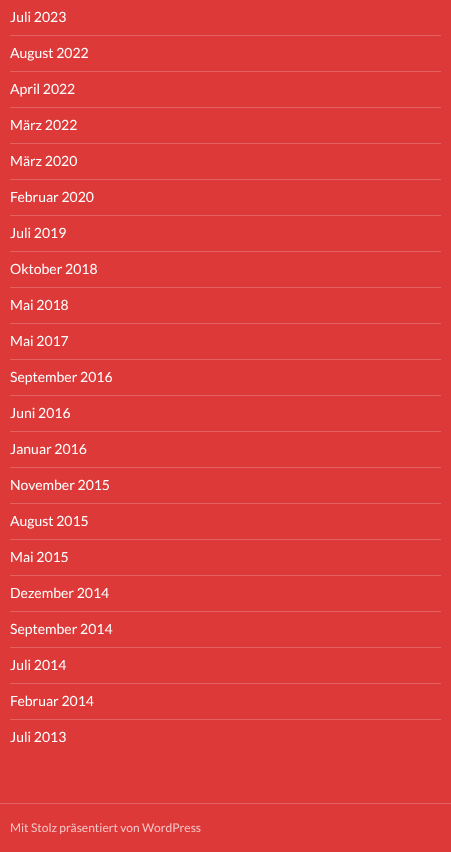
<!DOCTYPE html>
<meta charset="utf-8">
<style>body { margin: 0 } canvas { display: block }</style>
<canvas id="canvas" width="451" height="852"></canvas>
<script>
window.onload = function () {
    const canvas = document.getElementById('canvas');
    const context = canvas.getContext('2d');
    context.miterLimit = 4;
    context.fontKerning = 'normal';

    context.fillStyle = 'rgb(221, 57, 57)';
    context.fillRect(0, 0, 451, 852);
    context.fillStyle = 'rgb(228, 97, 97)';
    context.fillRect(0, 803, 451, 1);
    context.fillRect(10, 35, 431, 1);
    context.fillRect(10, 71, 431, 1);
    context.fillRect(10, 107, 431, 1);
    context.fillRect(10, 143, 431, 1);
    context.fillRect(10, 179, 431, 1);
    context.fillRect(10, 215, 431, 1);
    context.fillRect(10, 251, 431, 1);
    context.fillRect(10, 287, 431, 1);
    context.fillRect(10, 323, 431, 1);
    context.fillRect(10, 359, 431, 1);
    context.fillRect(10, 395, 431, 1);
    context.fillRect(10, 431, 431, 1);
    context.fillRect(10, 467, 431, 1);
    context.fillRect(10, 503, 431, 1);
    context.fillRect(10, 539, 431, 1);
    context.fillRect(10, 575, 431, 1);
    context.fillRect(10, 611, 431, 1);
    context.fillRect(10, 647, 431, 1);
    context.fillRect(10, 683, 431, 1);
    context.fillRect(10, 719, 431, 1);
    context.font = '14px Lato';
    context.fillStyle = 'rgb(255, 255, 255)';
    context.fillText('Juli 2023', 10, 22);
    context.fillText('August 2022', 10, 58);
    context.fillText('April 2022', 10, 94);
    context.fillText('März 2022', 10, 130);
    context.fillText('März 2020', 10, 166);
    context.fillText('Februar 2020', 10, 202);
    context.fillText('Juli 2019', 10, 238);
    context.fillText('Oktober 2018', 10, 274);
    context.fillText('Mai 2018', 10, 310);
    context.fillText('Mai 2017', 10, 346);
    context.fillText('September 2016', 10, 382);
    context.fillText('Juni 2016', 10, 418);
    context.fillText('Januar 2016', 10, 454);
    context.fillText('November 2015', 10, 490);
    context.fillText('August 2015', 10, 526);
    context.fillText('Mai 2015', 10, 562);
    context.fillText('Dezember 2014', 10, 598);
    context.fillText('September 2014', 10, 634);
    context.fillText('Juli 2014', 10, 670);
    context.fillText('Februar 2014', 10, 706);
    context.fillText('Juli 2013', 10, 742);
    context.font = '12px Lato';
    context.fillStyle = 'rgb(245, 196, 196)';
    context.fillText('Mit Stolz präsentiert von WordPress', 10, 832);
};
</script>
